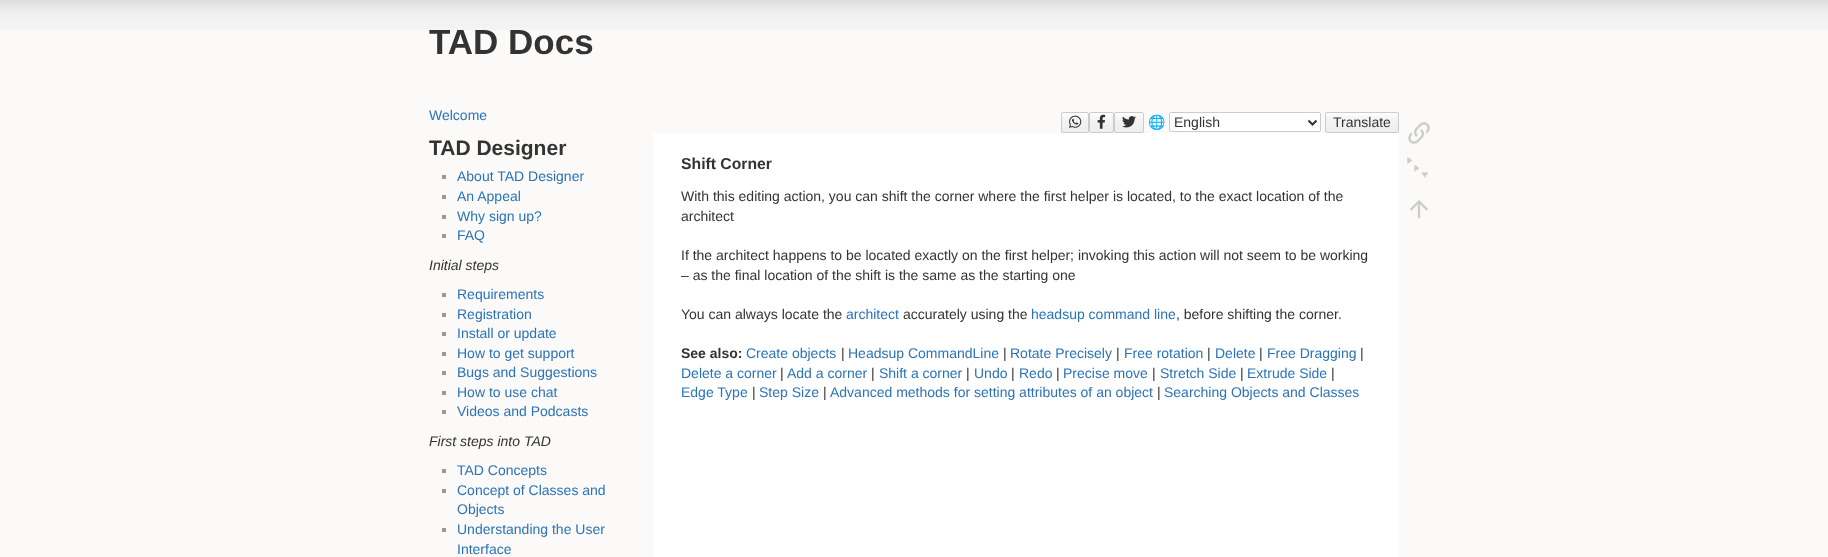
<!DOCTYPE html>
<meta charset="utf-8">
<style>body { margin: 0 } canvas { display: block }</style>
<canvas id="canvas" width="1828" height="557"></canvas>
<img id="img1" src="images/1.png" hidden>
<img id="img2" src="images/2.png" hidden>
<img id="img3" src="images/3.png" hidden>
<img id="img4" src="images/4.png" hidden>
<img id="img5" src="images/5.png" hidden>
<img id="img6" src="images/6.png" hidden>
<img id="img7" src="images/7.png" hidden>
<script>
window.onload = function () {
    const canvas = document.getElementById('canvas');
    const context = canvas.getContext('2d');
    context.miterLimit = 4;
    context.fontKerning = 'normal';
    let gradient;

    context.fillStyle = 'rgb(251, 250, 249)';
    context.fillRect(0, 0, 1828, 557);
    context.drawImage(document.getElementById('img1'), 0, 0, 1828, 31);
    context.fillStyle = 'rgb(153, 153, 153)';
    context.fillRect(442, 175, 4, 4);
    context.fillRect(442, 195, 4, 4);
    context.fillRect(442, 215, 4, 4);
    context.fillRect(442, 234, 4, 4);
    context.fillRect(442, 293, 4, 4);
    context.fillRect(442, 313, 4, 4);
    context.fillRect(442, 332, 4, 4);
    context.fillRect(442, 352, 4, 4);
    context.fillRect(442, 371, 4, 4);
    context.fillRect(442, 391, 4, 4);
    context.fillRect(442, 410, 4, 4);
    context.fillRect(442, 469, 4, 4);
    context.fillRect(442, 489, 4, 4);
    context.fillRect(442, 528, 4, 4);
    context.save();
    context.beginPath();
    context.roundRect(1061, 112, 28, 21, 2);
    context.clip();
    gradient = context.createLinearGradient(1075, 113, 1075, 132);
    gradient.addColorStop(0, 'rgb(255, 255, 255)');
    gradient.addColorStop(0.3, 'rgb(244, 244, 244)');
    gradient.addColorStop(0.99, 'rgb(238, 238, 238)');
    gradient.addColorStop(0.99, 'rgb(204, 204, 204)');
    context.fillStyle = gradient;
    context.fillRect(1061, 113, 28, 19);
    context.restore();
    context.beginPath();
    context.roundRect(1061.5, 112.5, 27, 20, 1.5);
    context.strokeStyle = 'rgb(204, 204, 204)';
    context.stroke();
    context.drawImage(document.getElementById('img2'), 1069, 115, 13, 13);
    context.save();
    context.beginPath();
    context.roundRect(1089, 112, 25, 21, 2);
    context.clip();
    gradient = context.createLinearGradient(1102, 113, 1102, 132);
    gradient.addColorStop(0, 'rgb(255, 255, 255)');
    gradient.addColorStop(0.3, 'rgb(244, 244, 244)');
    gradient.addColorStop(0.99, 'rgb(238, 238, 238)');
    gradient.addColorStop(0.99, 'rgb(204, 204, 204)');
    context.fillStyle = gradient;
    context.fillRect(1089, 113, 25, 19);
    context.restore();
    context.beginPath();
    context.roundRect(1089.5, 112.5, 24, 20, 1.5);
    context.stroke();
    context.drawImage(document.getElementById('img3'), 1097, 114, 9, 15);
    context.save();
    context.beginPath();
    context.roundRect(1114, 112, 30, 21, 2);
    context.clip();
    gradient = context.createLinearGradient(1129, 113, 1129, 132);
    gradient.addColorStop(0, 'rgb(255, 255, 255)');
    gradient.addColorStop(0.3, 'rgb(244, 244, 244)');
    gradient.addColorStop(0.99, 'rgb(238, 238, 238)');
    gradient.addColorStop(0.99, 'rgb(204, 204, 204)');
    context.fillStyle = gradient;
    context.fillRect(1114, 113, 30, 19);
    context.restore();
    context.beginPath();
    context.roundRect(1114.5, 112.5, 29, 20, 1.5);
    context.stroke();
    context.drawImage(document.getElementById('img4'), 1122, 116, 14, 12);
    context.fillStyle = 'rgb(255, 255, 255)';
    context.beginPath();
    context.roundRect(1169.5, 112.5, 151, 19, 1.5);
    context.fill();
    context.stroke();
    context.beginPath();
    context.moveTo(1308.5, 120.5);
    context.lineTo(1312.5, 124.5);
    context.lineTo(1316.5, 120.5);
    context.strokeStyle = 'rgb(51, 51, 51)';
    context.lineWidth = 2;
    context.stroke();
    context.save();
    context.beginPath();
    context.roundRect(1325, 112, 74, 21, 2);
    context.clip();
    gradient = context.createLinearGradient(1362, 113, 1362, 132);
    gradient.addColorStop(0, 'rgb(255, 255, 255)');
    gradient.addColorStop(0.3, 'rgb(244, 244, 244)');
    gradient.addColorStop(0.99, 'rgb(238, 238, 238)');
    gradient.addColorStop(0.99, 'rgb(204, 204, 204)');
    context.fillStyle = gradient;
    context.fillRect(1325, 113, 74, 19);
    context.restore();
    context.beginPath();
    context.roundRect(1325.5, 112.5, 73, 20, 1.5);
    context.strokeStyle = 'rgb(204, 204, 204)';
    context.lineWidth = 1;
    context.stroke();
    context.beginPath();
    context.roundRect(653, 133, 746, 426, 2);
    context.fill();
    context.drawImage(document.getElementById('img5'), 1408, 122, 22, 22);
    context.drawImage(document.getElementById('img6'), 1407, 157, 21, 21);
    context.drawImage(document.getElementById('img7'), 1410, 200, 18, 19);
    context.font = 'bold 35px Liberation Sans';
    context.fillStyle = 'rgb(51, 51, 51)';
    context.fillText('TAD Docs', 429, 54);
    context.font = '14px Liberation Sans';
    context.fillStyle = 'rgb(43, 115, 183)';
    context.fillText('Welcome', 429, 120);
    context.font = 'bold 21px Liberation Sans';
    context.fillStyle = 'rgb(51, 51, 51)';
    context.fillText('TAD Designer', 429, 155);
    context.font = '14px Liberation Sans';
    context.fillStyle = 'rgb(43, 115, 183)';
    context.fillText('About TAD Designer', 457, 181);
    context.fillText('An Appeal', 457, 201);
    context.fillText('Why sign up?', 457, 221);
    context.fillText('FAQ', 457, 240);
    context.font = 'italic 14px Liberation Sans';
    context.fillStyle = 'rgb(51, 51, 51)';
    context.fillText('Initial steps', 429, 270);
    context.font = '14px Liberation Sans';
    context.fillStyle = 'rgb(43, 115, 183)';
    context.fillText('Requirements', 457, 299);
    context.fillText('Registration', 457, 319);
    context.fillText('Install or update', 457, 338);
    context.fillText('How to get support', 457, 358);
    context.fillText('Bugs and Suggestions', 457, 377);
    context.fillText('How to use chat', 457, 397);
    context.fillText('Videos and Podcasts', 457, 416);
    context.font = 'italic 14px Liberation Sans';
    context.fillStyle = 'rgb(51, 51, 51)';
    context.fillText('First steps into TAD', 429, 446);
    context.font = '14px Liberation Sans';
    context.fillStyle = 'rgb(43, 115, 183)';
    context.fillText('TAD Concepts', 457, 475);
    context.fillText('Concept of Classes and', 457, 495);
    context.fillText('Objects', 457, 514);
    context.fillText('Understanding the User', 457, 534);
    context.fillText('Interface', 457, 554);
    context.font = '14px Noto Color Emoji';
    context.fillStyle = 'rgb(51, 51, 51)';
    context.fillText('🌐', 1148, 127);
    context.font = '14px Liberation Sans';
    context.fillText('English', 1174, 127);
    context.fillText('Translate', 1333, 127);
    context.font = 'bold 15.75px Liberation Sans';
    context.fillText('Shift Corner', 681, 169);
    context.font = '14px Liberation Sans';
    context.fillText('With this editing action, you can shift the corner where the first helper is located, to the exact location of the', 681, 201);
    context.fillText('architect', 681, 221);
    context.fillText('If the architect happens to be located exactly on the first helper; invoking this action will not seem to be working', 681, 260);
    context.fillText('– as the final location of the shift is the same as the starting one', 681, 280);
    context.fillText('You can always locate the', 681, 319);
    context.fillStyle = 'rgb(43, 115, 183)';
    context.fillText('architect', 846, 319);
    context.fillStyle = 'rgb(51, 51, 51)';
    context.fillText('accurately using the', 903, 319);
    context.fillStyle = 'rgb(43, 115, 183)';
    context.fillText('headsup command line', 1031, 319);
    context.fillStyle = 'rgb(51, 51, 51)';
    context.fillText(', before shifting the corner.', 1176, 319);
    context.font = 'bold 14px Liberation Sans';
    context.fillText('See also:', 681, 358);
    context.font = '14px Liberation Sans';
    context.fillStyle = 'rgb(43, 115, 183)';
    context.fillText('Create objects', 746, 358);
    context.fillStyle = 'rgb(51, 51, 51)';
    context.fillText('|', 841, 358);
    context.fillStyle = 'rgb(43, 115, 183)';
    context.fillText('Headsup CommandLine', 848, 358);
    context.fillStyle = 'rgb(51, 51, 51)';
    context.fillText('|', 1003, 358);
    context.fillStyle = 'rgb(43, 115, 183)';
    context.fillText('Rotate Precisely', 1010, 358);
    context.fillStyle = 'rgb(51, 51, 51)';
    context.fillText('|', 1116, 358);
    context.fillStyle = 'rgb(43, 115, 183)';
    context.fillText('Free rotation', 1124, 358);
    context.fillStyle = 'rgb(51, 51, 51)';
    context.fillText('|', 1207, 358);
    context.fillStyle = 'rgb(43, 115, 183)';
    context.fillText('Delete', 1215, 358);
    context.fillStyle = 'rgb(51, 51, 51)';
    context.fillText('|', 1259, 358);
    context.fillStyle = 'rgb(43, 115, 183)';
    context.fillText('Free Dragging', 1267, 358);
    context.fillStyle = 'rgb(51, 51, 51)';
    context.fillText('|', 1360, 358);
    context.fillStyle = 'rgb(43, 115, 183)';
    context.fillText('Delete a corner', 681, 378);
    context.fillStyle = 'rgb(51, 51, 51)';
    context.fillText('|', 780, 378);
    context.fillStyle = 'rgb(43, 115, 183)';
    context.fillText('Add a corner', 787, 378);
    context.fillStyle = 'rgb(51, 51, 51)';
    context.fillText('|', 871, 378);
    context.fillStyle = 'rgb(43, 115, 183)';
    context.fillText('Shift a corner', 879, 378);
    context.fillStyle = 'rgb(51, 51, 51)';
    context.fillText('|', 966, 378);
    context.fillStyle = 'rgb(43, 115, 183)';
    context.fillText('Undo', 974, 378);
    context.fillStyle = 'rgb(51, 51, 51)';
    context.fillText('|', 1011, 378);
    context.fillStyle = 'rgb(43, 115, 183)';
    context.fillText('Redo', 1019, 378);
    context.fillStyle = 'rgb(51, 51, 51)';
    context.fillText('|', 1056, 378);
    context.fillStyle = 'rgb(43, 115, 183)';
    context.fillText('Precise move', 1063, 378);
    context.fillStyle = 'rgb(51, 51, 51)';
    context.fillText('|', 1152, 378);
    context.fillStyle = 'rgb(43, 115, 183)';
    context.fillText('Stretch Side', 1160, 378);
    context.fillStyle = 'rgb(51, 51, 51)';
    context.fillText('|', 1240, 378);
    context.fillStyle = 'rgb(43, 115, 183)';
    context.fillText('Extrude Side', 1247, 378);
    context.fillStyle = 'rgb(51, 51, 51)';
    context.fillText('|', 1331, 378);
    context.fillStyle = 'rgb(43, 115, 183)';
    context.fillText('Edge Type', 681, 397);
    context.fillStyle = 'rgb(51, 51, 51)';
    context.fillText('|', 752, 397);
    context.fillStyle = 'rgb(43, 115, 183)';
    context.fillText('Step Size', 759, 397);
    context.fillStyle = 'rgb(51, 51, 51)';
    context.fillText('|', 823, 397);
    context.fillStyle = 'rgb(43, 115, 183)';
    context.fillText('Advanced methods for setting attributes of an object', 830, 397);
    context.fillStyle = 'rgb(51, 51, 51)';
    context.fillText('|', 1157, 397);
    context.fillStyle = 'rgb(43, 115, 183)';
    context.fillText('Searching Objects and Classes', 1164, 397);
};
</script>
